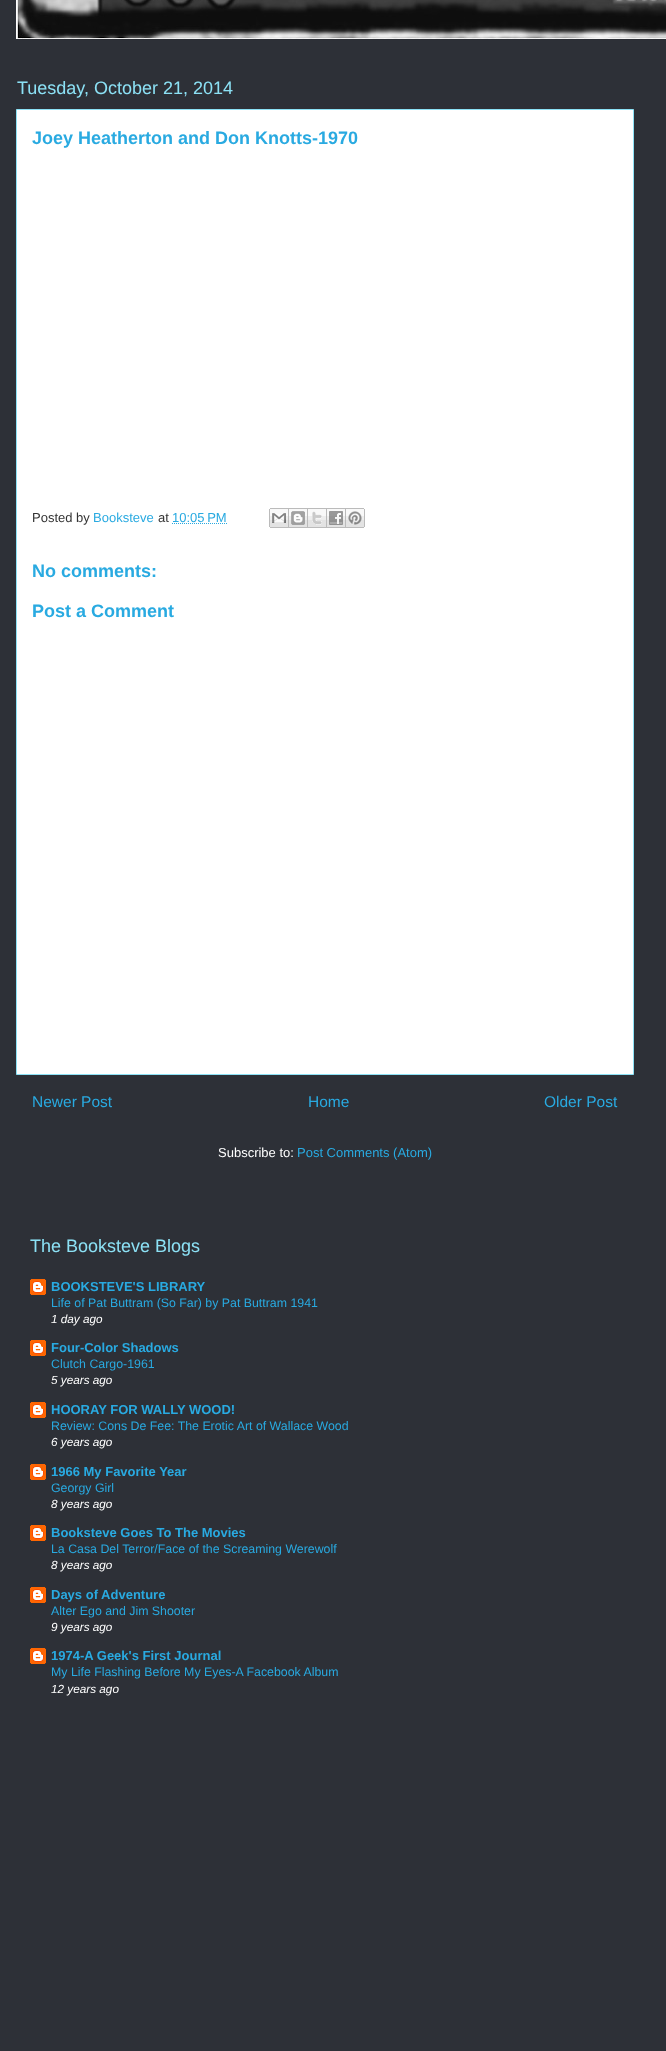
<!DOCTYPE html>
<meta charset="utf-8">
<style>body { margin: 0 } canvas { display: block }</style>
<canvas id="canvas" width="666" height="2051"></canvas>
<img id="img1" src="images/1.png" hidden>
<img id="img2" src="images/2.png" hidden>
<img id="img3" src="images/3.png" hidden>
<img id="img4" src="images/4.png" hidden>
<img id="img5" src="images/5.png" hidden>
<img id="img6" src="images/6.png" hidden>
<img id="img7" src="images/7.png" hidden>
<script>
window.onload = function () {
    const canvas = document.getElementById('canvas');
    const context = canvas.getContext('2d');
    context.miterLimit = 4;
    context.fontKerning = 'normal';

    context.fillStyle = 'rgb(45, 48, 55)';
    context.fillRect(0, 0, 666, 2051);
    context.drawImage(document.getElementById('img1'), 16, 0, 650, 39);
    context.fillStyle = 'rgb(255, 255, 255)';
    context.beginPath();
    context.rect(16.5, 109.5, 617, 965);
    context.fill();
    context.strokeStyle = 'rgb(140, 225, 245)';
    context.stroke();
    context.beginPath();
    context.moveTo(172, 523.5);
    context.lineTo(227, 523.5);
    context.strokeStyle = 'rgb(41, 170, 225)';
    context.setLineDash([1, 1]);
    context.stroke();
    context.drawImage(document.getElementById('img2'), 269, 508, 20, 20);
    context.drawImage(document.getElementById('img3'), 289, 508, 19, 20);
    context.drawImage(document.getElementById('img4'), 308, 508, 19, 20);
    context.drawImage(document.getElementById('img5'), 327, 508, 19, 20);
    context.drawImage(document.getElementById('img6'), 346, 508, 19, 20);
    context.drawImage(document.getElementById('img7'), 30, 1279, 16, 16);
    context.drawImage(document.getElementById('img7'), 30, 1340, 16, 16);
    context.drawImage(document.getElementById('img7'), 30, 1402, 16, 16);
    context.drawImage(document.getElementById('img7'), 30, 1464, 16, 16);
    context.drawImage(document.getElementById('img7'), 30, 1525, 16, 16);
    context.drawImage(document.getElementById('img7'), 30, 1587, 16, 16);
    context.drawImage(document.getElementById('img7'), 30, 1648, 16, 16);
    context.font = '18px Liberation Sans';
    context.fillStyle = 'rgb(140, 225, 245)';
    context.fillText('Tuesday, October 21, 2014', 17, 94);
    context.font = 'bold 18px Liberation Sans';
    context.fillStyle = 'rgb(41, 170, 225)';
    context.fillText('Joey Heatherton and Don Knotts-1970', 32, 144);
    context.font = '13px Liberation Sans';
    context.fillStyle = 'rgb(51, 51, 51)';
    context.fillText('Posted by', 32, 522);
    context.fillStyle = 'rgb(41, 170, 225)';
    context.fillText('Booksteve', 93, 522);
    context.fillStyle = 'rgb(51, 51, 51)';
    context.fillText('at', 158, 522);
    context.fillStyle = 'rgb(41, 170, 225)';
    context.fillText('10:05 PM', 172, 522);
    context.font = 'bold 18px Liberation Sans';
    context.fillText('No comments:', 32, 577);
    context.fillText('Post a Comment', 32, 617);
    context.font = '15.5px Liberation Sans';
    context.fillText('Newer Post', 32, 1107);
    context.fillText('Home', 308, 1107);
    context.fillText('Older Post', 544, 1107);
    context.font = '13px Liberation Sans';
    context.fillStyle = 'rgb(255, 255, 255)';
    context.fillText('Subscribe to:', 218, 1157);
    context.fillStyle = 'rgb(41, 170, 225)';
    context.fillText('Post Comments (Atom)', 297, 1157);
    context.font = '18px Liberation Sans';
    context.fillStyle = 'rgb(140, 225, 245)';
    context.fillText('The Booksteve Blogs', 30, 1252);
    context.font = 'bold 13px Liberation Sans';
    context.fillStyle = 'rgb(41, 170, 225)';
    context.fillText('BOOKSTEVE\'S LIBRARY', 51, 1291);
    context.font = '12.35px Liberation Sans';
    context.fillText('Life of Pat Buttram (So Far) by Pat Buttram 1941', 51, 1307);
    context.font = 'italic 11.75px Liberation Sans';
    context.fillStyle = 'rgb(255, 255, 255)';
    context.fillText('1 day ago', 51, 1323);
    context.font = 'bold 13px Liberation Sans';
    context.fillStyle = 'rgb(41, 170, 225)';
    context.fillText('Four-Color Shadows', 51, 1352);
    context.font = '12.35px Liberation Sans';
    context.fillText('Clutch Cargo-1961', 51, 1368);
    context.font = 'italic 11.75px Liberation Sans';
    context.fillStyle = 'rgb(255, 255, 255)';
    context.fillText('5 years ago', 51, 1384);
    context.font = 'bold 13px Liberation Sans';
    context.fillStyle = 'rgb(41, 170, 225)';
    context.fillText('HOORAY FOR WALLY WOOD!', 51, 1414);
    context.font = '12.35px Liberation Sans';
    context.fillText('Review: Cons De Fee: The Erotic Art of Wallace Wood', 51, 1430);
    context.font = 'italic 11.75px Liberation Sans';
    context.fillStyle = 'rgb(255, 255, 255)';
    context.fillText('6 years ago', 51, 1446);
    context.font = 'bold 13px Liberation Sans';
    context.fillStyle = 'rgb(41, 170, 225)';
    context.fillText('1966 My Favorite Year', 51, 1476);
    context.font = '12.35px Liberation Sans';
    context.fillText('Georgy Girl', 51, 1492);
    context.font = 'italic 11.75px Liberation Sans';
    context.fillStyle = 'rgb(255, 255, 255)';
    context.fillText('8 years ago', 51, 1508);
    context.font = 'bold 13px Liberation Sans';
    context.fillStyle = 'rgb(41, 170, 225)';
    context.fillText('Booksteve Goes To The Movies', 51, 1537);
    context.font = '12.35px Liberation Sans';
    context.fillText('La Casa Del Terror/Face of the Screaming Werewolf', 51, 1553);
    context.font = 'italic 11.75px Liberation Sans';
    context.fillStyle = 'rgb(255, 255, 255)';
    context.fillText('8 years ago', 51, 1569);
    context.font = 'bold 13px Liberation Sans';
    context.fillStyle = 'rgb(41, 170, 225)';
    context.fillText('Days of Adventure', 51, 1599);
    context.font = '12.35px Liberation Sans';
    context.fillText('Alter Ego and Jim Shooter', 51, 1615);
    context.font = 'italic 11.75px Liberation Sans';
    context.fillStyle = 'rgb(255, 255, 255)';
    context.fillText('9 years ago', 51, 1631);
    context.font = 'bold 13px Liberation Sans';
    context.fillStyle = 'rgb(41, 170, 225)';
    context.fillText('1974-A Geek\'s First Journal', 51, 1660);
    context.font = '12.35px Liberation Sans';
    context.fillText('My Life Flashing Before My Eyes-A Facebook Album', 51, 1676);
    context.font = 'italic 11.75px Liberation Sans';
    context.fillStyle = 'rgb(255, 255, 255)';
    context.fillText('12 years ago', 51, 1693);
};
</script>
